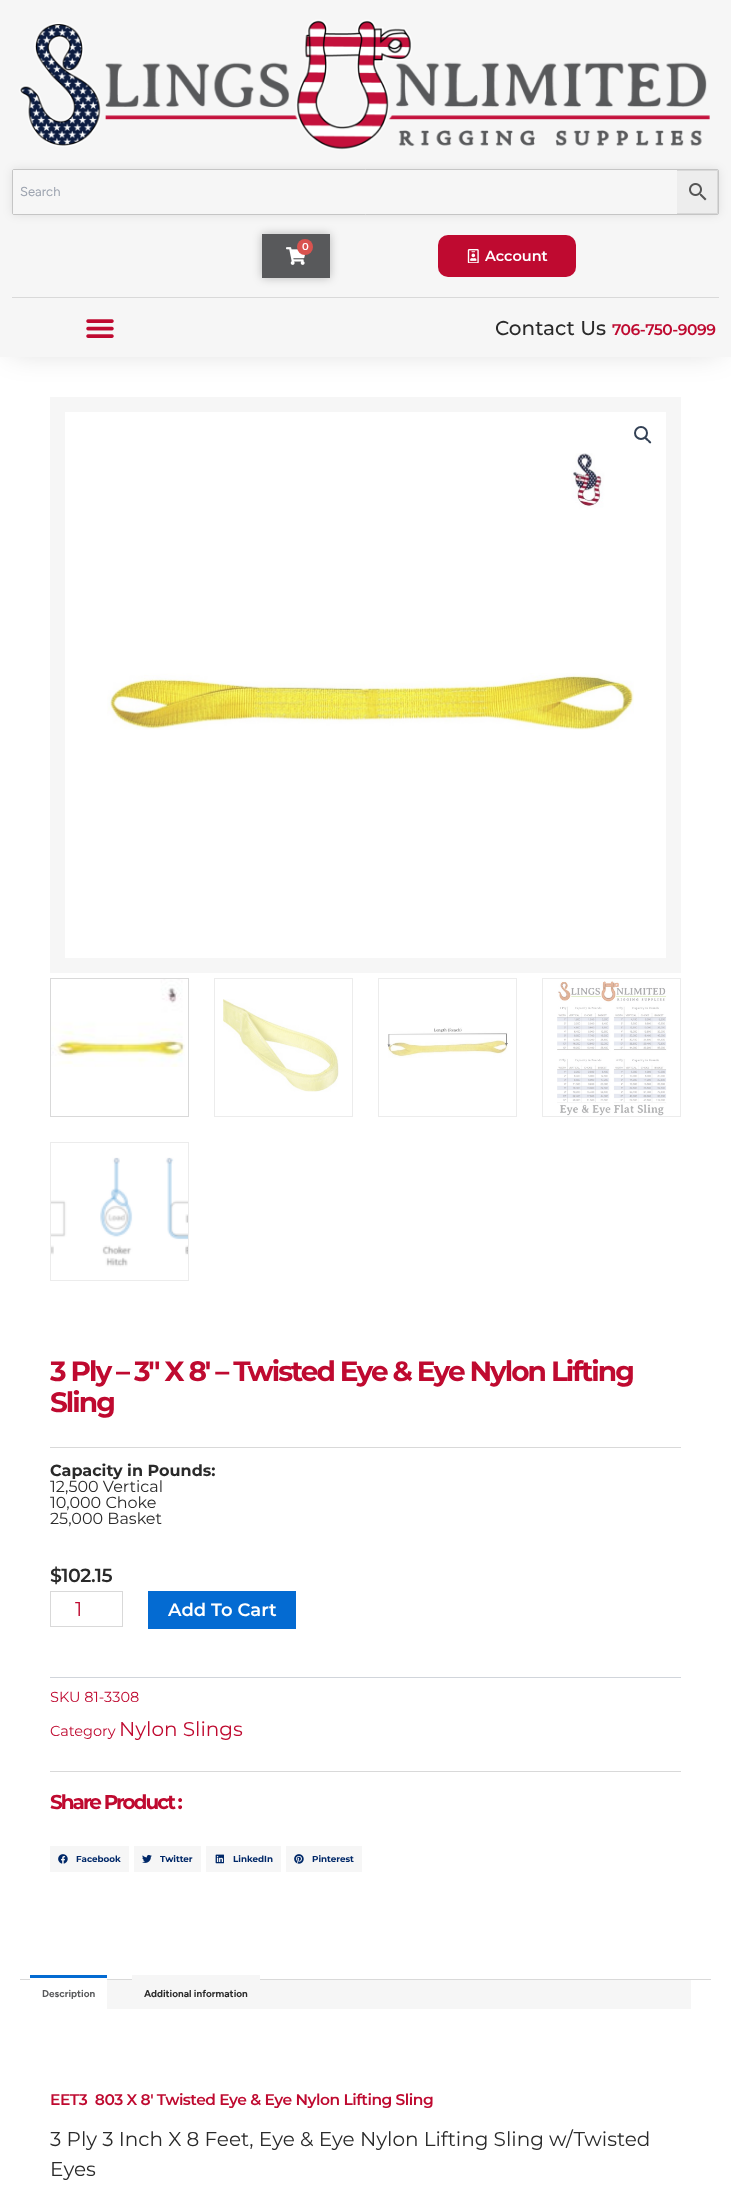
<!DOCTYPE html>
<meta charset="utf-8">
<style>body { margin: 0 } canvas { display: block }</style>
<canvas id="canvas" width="731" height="2197"></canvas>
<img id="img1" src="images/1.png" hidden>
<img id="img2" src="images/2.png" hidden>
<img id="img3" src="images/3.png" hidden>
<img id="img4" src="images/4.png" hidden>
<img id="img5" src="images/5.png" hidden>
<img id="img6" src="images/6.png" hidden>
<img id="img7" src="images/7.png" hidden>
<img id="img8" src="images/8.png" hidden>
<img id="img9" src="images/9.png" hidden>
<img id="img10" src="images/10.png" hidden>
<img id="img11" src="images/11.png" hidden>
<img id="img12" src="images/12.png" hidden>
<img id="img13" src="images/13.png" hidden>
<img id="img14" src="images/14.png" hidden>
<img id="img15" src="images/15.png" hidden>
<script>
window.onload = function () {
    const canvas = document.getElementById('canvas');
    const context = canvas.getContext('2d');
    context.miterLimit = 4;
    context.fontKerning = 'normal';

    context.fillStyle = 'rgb(255, 255, 255)';
    context.fillRect(0, 0, 731, 2197);
    context.strokeStyle = 'rgb(246, 246, 246)';
    context.lineWidth = 15;
    context.strokeRect(57.5, 404.5, 616, 561);
    context.fillStyle = 'rgba(0, 0, 0, 0.15)';
    context.filter = 'blur(15px)';
    context.beginPath();
    context.rect(10, 15, 711, 337);
    context.fill();
    context.filter = 'none';
    context.fillStyle = 'rgb(246, 246, 246)';
    context.fillRect(0, 0, 731, 357);
    context.drawImage(document.getElementById('img1'), 19, 19, 691, 131);
    context.fillStyle = 'rgba(0, 0, 0, 0.09)';
    context.filter = 'blur(5px)';
    context.beginPath();
    context.roundRect(12, 169, 707, 46, 2);
    context.fill();
    context.filter = 'none';
    context.beginPath();
    context.roundRect(12.5, 169.5, 706, 45, 1.5);
    context.strokeStyle = 'rgb(197, 197, 197)';
    context.lineWidth = 1;
    context.stroke();
    context.fillStyle = 'rgb(237, 237, 237)';
    context.beginPath();
    context.rect(676.5, 170.5, 41, 43);
    context.fill();
    context.strokeStyle = 'rgb(216, 216, 216)';
    context.stroke();
    context.fillStyle = 'rgb(246, 246, 246)';
    context.fillRect(13, 170, 664, 44);
    context.drawImage(document.getElementById('img2'), 689, 183, 18, 18);
    context.fillStyle = 'rgba(0, 0, 0, 0.25)';
    context.filter = 'blur(5px)';
    context.beginPath();
    context.rect(262, 234, 68, 44);
    context.fill();
    context.filter = 'none';
    context.fillStyle = 'rgb(88, 89, 91)';
    context.fillRect(262, 234, 68, 44);
    context.drawImage(document.getElementById('img3'), 286, 247, 20, 18);
    context.fillStyle = 'rgb(217, 83, 79)';
    context.beginPath();
    context.arc(305, 247, 8, 0, 2 * Math.PI);
    context.fill();
    context.fillStyle = 'rgb(191, 10, 48)';
    context.beginPath();
    context.roundRect(438, 235, 138, 42, 10);
    context.fill();
    context.drawImage(document.getElementById('img4'), 467, 249, 12, 14);
    context.fillStyle = 'rgb(217, 217, 217)';
    context.fillRect(12, 297, 707, 1);
    context.drawImage(document.getElementById('img5'), 86, 319, 28, 19);
    context.drawImage(document.getElementById('img6'), 107, 453, 527, 277);
    context.beginPath();
    context.arc(641, 433, 6, 0, 2 * Math.PI);
    context.strokeStyle = 'rgb(51, 65, 85)';
    context.lineWidth = 2;
    context.stroke();
    context.fillStyle = 'rgb(51, 65, 85)';
    context.beginPath();
    context.moveTo(645, 437.5);
    context.bezierCurveTo(646.5, 436.5, 648, 439, 648.5, 439.5);
    context.bezierCurveTo(649.5, 440.5, 652, 442, 651, 443);
    context.bezierCurveTo(649.5, 444.5, 648, 441.5, 647.5, 441);
    context.bezierCurveTo(646.5, 440.5, 644, 438.5, 645, 437.5);
    context.closePath();
    context.fill();
    context.strokeStyle = 'rgb(217, 217, 217)';
    context.lineWidth = 1;
    context.strokeRect(50.5, 978.5, 138, 138);
    context.drawImage(document.getElementById('img7'), 51, 979, 134, 88);
    context.strokeStyle = 'rgb(236, 236, 236)';
    context.strokeRect(214.5, 978.5, 138, 138);
    context.drawImage(document.getElementById('img8'), 223, 999, 116, 93);
    context.strokeRect(378.5, 978.5, 138, 138);
    context.drawImage(document.getElementById('img9'), 387, 1027, 121, 31);
    context.strokeRect(542.5, 978.5, 138, 138);
    context.drawImage(document.getElementById('img10'), 557, 981, 110, 135);
    context.strokeRect(50.5, 1142.5, 138, 138);
    context.drawImage(document.getElementById('img11'), 51, 1157, 137, 110);
    context.fillStyle = 'rgb(217, 217, 217)';
    context.fillRect(50, 1447, 631, 1);
    context.strokeStyle = 'rgb(217, 217, 217)';
    context.strokeRect(50.5, 1591.5, 72, 35);
    context.fillStyle = 'rgb(4, 107, 210)';
    context.fillRect(148, 1591, 148, 38);
    context.fillStyle = 'rgb(209, 213, 219)';
    context.fillRect(50, 1677, 631, 1);
    context.fillStyle = 'rgb(217, 217, 217)';
    context.fillRect(50, 1771, 631, 1);
    context.fillStyle = 'rgb(246, 246, 246)';
    context.fillRect(50, 1846, 79, 26);
    context.drawImage(document.getElementById('img12'), 58, 1854, 10, 10);
    context.fillRect(134, 1846, 67, 26);
    context.drawImage(document.getElementById('img13'), 142, 1854, 10, 9);
    context.fillRect(206, 1846, 75, 26);
    context.drawImage(document.getElementById('img14'), 215, 1854, 9, 10);
    context.fillRect(286, 1846, 76, 26);
    context.drawImage(document.getElementById('img15'), 294, 1854, 10, 10);
    context.fillStyle = 'rgb(217, 217, 217)';
    context.fillRect(20, 1979, 691, 1);
    context.fillStyle = 'rgb(246, 246, 246)';
    context.fillRect(107, 1980, 584, 29);
    context.fillStyle = 'rgb(255, 255, 255)';
    context.fillRect(30, 1979, 77, 1);
    context.fillStyle = 'rgb(4, 107, 210)';
    context.fillRect(30, 1975, 77, 3);
    context.fillStyle = 'rgb(246, 246, 246)';
    context.fillRect(132, 1975, 128, 5);
    context.font = '13px Figtree';
    context.fillStyle = 'rgb(156, 163, 175)';
    context.fillText('Search', 20, 196);
    context.font = '600 10px Montserrat';
    context.fillStyle = 'rgb(255, 255, 255)';
    context.fillText('0', 302, 250);
    context.font = '600 14.5px Montserrat';
    context.fillText('Account', 485, 261);
    context.font = '500 20px Montserrat';
    context.fillStyle = 'rgb(42, 42, 42)';
    context.fillText('Contact Us', 495, 335);
    context.letterSpacing = '-0.5px';
    context.font = '600 15.5px Montserrat';
    context.fillStyle = 'rgb(191, 10, 48)';
    context.fillText('706-750-9099', 612, 335);
    context.letterSpacing = '-2px';
    context.font = 'bold 28px Montserrat';
    context.fillText('3 Ply – 3″ X 8′ – Twisted Eye & Eye Nylon Lifting', 50, 1381);
    context.fillText('Sling', 50, 1412);
    context.letterSpacing = '0px';
    context.font = 'bold 16px Montserrat';
    context.fillStyle = 'rgb(42, 42, 42)';
    context.fillText('Capacity in Pounds:', 50, 1476);
    context.font = '16px Montserrat';
    context.fillText('12,500 Vertical', 50, 1492);
    context.fillText('10,000 Choke', 50, 1508);
    context.fillText('25,000 Basket', 50, 1524);
    context.letterSpacing = '-0.5px';
    context.font = '600 19px Montserrat';
    context.fillText('$102.15', 50, 1582);
    context.letterSpacing = '0px';
    context.font = '20px Montserrat';
    context.fillStyle = 'rgb(191, 10, 48)';
    context.fillText('1', 75, 1616);
    context.font = '600 18px Montserrat';
    context.fillStyle = 'rgb(255, 255, 255)';
    context.fillText('Add To Cart', 168, 1616);
    context.font = '14.5px Montserrat';
    context.fillStyle = 'rgb(191, 10, 48)';
    context.fillText('SKU 81-3308', 50, 1702);
    context.fillText('Category', 50, 1736);
    context.font = '20px Montserrat';
    context.fillText('Nylon Slings', 119, 1736);
    context.letterSpacing = '-2px';
    context.font = 'bold 20px Montserrat';
    context.fillText('Share Product :', 50, 1809);
    context.letterSpacing = '0px';
    context.font = 'bold 8.75px Montserrat';
    context.fillStyle = 'rgb(0, 40, 104)';
    context.fillText('Facebook', 76, 1862);
    context.fillText('Twitter', 160, 1862);
    context.fillText('LinkedIn', 233, 1862);
    context.fillText('Pinterest', 312, 1862);
    context.font = 'bold 10px Figtree';
    context.fillStyle = 'rgb(88, 89, 91)';
    context.fillText('Description', 42, 1997);
    context.fillStyle = 'rgb(42, 42, 42)';
    context.fillText('Additional information', 144, 1997);
    context.letterSpacing = '-0.5px';
    context.font = '600 15.5px Montserrat';
    context.fillStyle = 'rgb(191, 10, 48)';
    context.fillText('EET3  803 X 8′ Twisted Eye & Eye Nylon Lifting Sling', 50, 2105);
    context.letterSpacing = '0px';
    context.font = '20px Montserrat';
    context.fillStyle = 'rgb(42, 42, 42)';
    context.fillText('3 Ply 3 Inch X 8 Feet, Eye & Eye Nylon Lifting Sling w/Twisted', 50, 2146);
    context.fillText('Eyes', 50, 2176);
};
</script>
